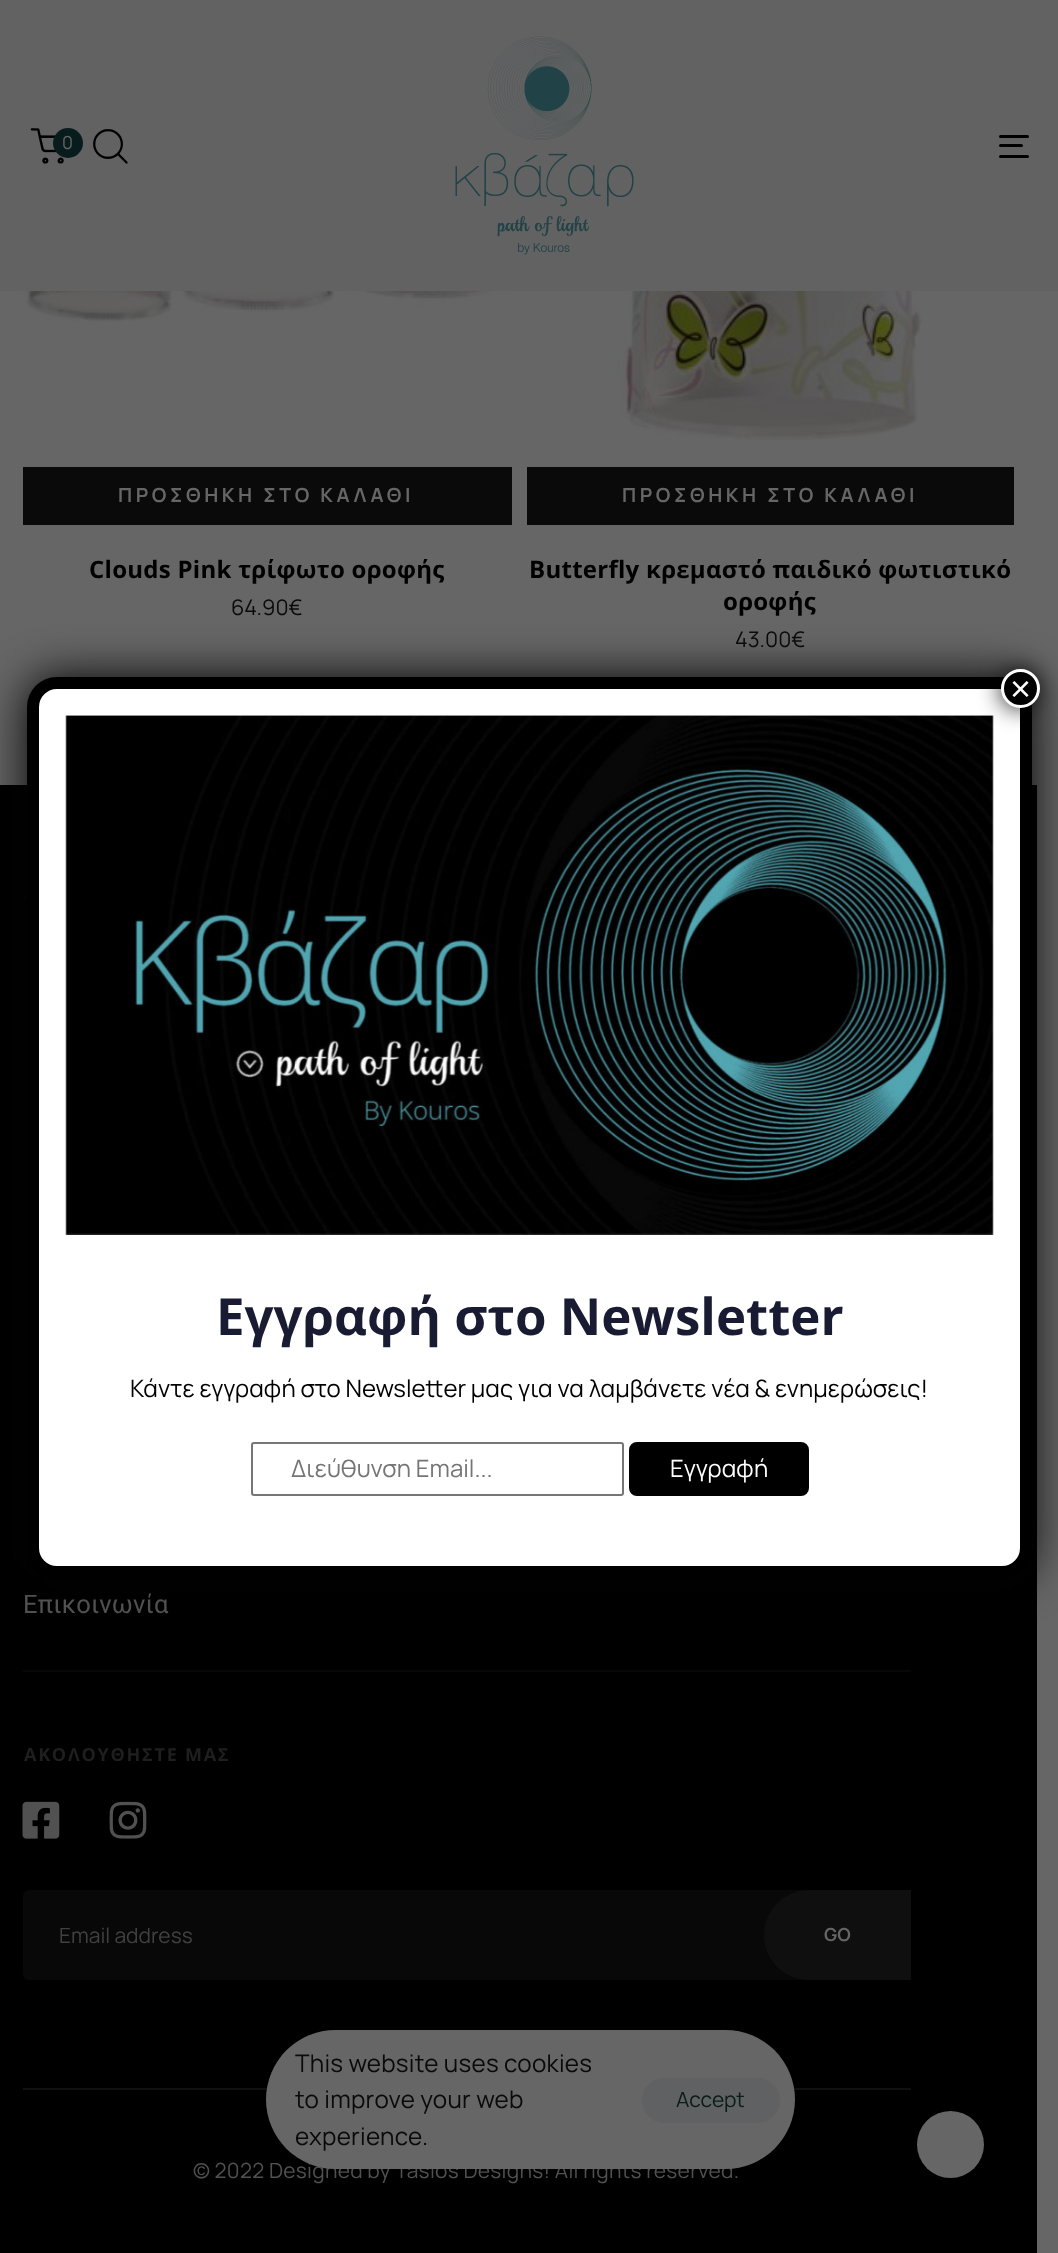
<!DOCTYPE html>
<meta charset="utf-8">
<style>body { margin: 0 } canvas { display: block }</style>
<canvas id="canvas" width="1058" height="2253"></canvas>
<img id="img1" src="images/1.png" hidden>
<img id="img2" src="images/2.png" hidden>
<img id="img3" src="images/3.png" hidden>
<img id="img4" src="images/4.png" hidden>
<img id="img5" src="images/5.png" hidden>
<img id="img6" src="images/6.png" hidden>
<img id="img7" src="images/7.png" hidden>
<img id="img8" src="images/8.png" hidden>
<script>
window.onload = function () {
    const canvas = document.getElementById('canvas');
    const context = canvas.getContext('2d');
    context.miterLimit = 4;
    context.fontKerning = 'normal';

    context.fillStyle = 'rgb(102, 102, 102)';
    context.fillRect(0, 0, 1058, 2253);
    context.fillStyle = 'rgb(98, 98, 98)';
    context.fillRect(0, 0, 1058, 291);
    context.drawImage(document.getElementById('img1'), 30, 128, 34, 36);
    context.fillStyle = 'rgb(8, 28, 30)';
    context.beginPath();
    context.arc(68, 143, 15, 0, 2 * Math.PI);
    context.fill();
    context.drawImage(document.getElementById('img2'), 93, 129, 35, 35);
    context.drawImage(document.getElementById('img3'), 455, 36, 179, 219);
    context.fillStyle = 'rgb(0, 0, 0)';
    context.beginPath();
    context.roundRect(999, 135, 30, 3, 1.5);
    context.fill();
    context.beginPath();
    context.roundRect(999, 144, 24, 3, 1.5);
    context.fill();
    context.beginPath();
    context.roundRect(999, 155, 30, 3, 1.5);
    context.fill();
    context.drawImage(document.getElementById('img4'), 23, 291, 488, 31);
    context.fillStyle = 'rgb(10, 10, 10)';
    context.fillRect(23, 467, 489, 58);
    context.drawImage(document.getElementById('img5'), 605, 291, 317, 150);
    context.fillRect(527, 467, 487, 58);
    context.fillStyle = 'rgb(0, 0, 0)';
    context.fillRect(0, 785, 1037, 1468);
    context.fillStyle = 'rgb(7, 7, 7)';
    context.fillRect(23, 897, 4, 2);
    context.fillRect(23, 1670, 888, 2);
    context.drawImage(document.getElementById('img6'), 22, 1801, 38, 38);
    context.drawImage(document.getElementById('img7'), 109, 1801, 38, 38);
    context.fillStyle = 'rgb(8, 8, 8)';
    context.beginPath();
    context.roundRect(23, 1890, 888, 90, 6);
    context.fill();
    context.fillStyle = 'rgb(15, 15, 15)';
    context.beginPath();
    context.roundRect(764, 1890, 147, 90, [45, 0, 0, 45]);
    context.fill();
    context.fillStyle = 'rgb(16, 16, 16)';
    context.fillRect(23, 2088, 888, 2);
    context.fillStyle = 'rgb(102, 102, 102)';
    context.beginPath();
    context.arc(950.5, 2144.5, 33.5, 0, 2 * Math.PI);
    context.fill();
    context.fillStyle = 'rgb(2, 2, 2)';
    context.filter = 'blur(22.5px)';
    context.beginPath();
    context.roundRect(27, 677, 1005, 901, 30);
    context.fill();
    context.filter = 'none';
    context.fillStyle = 'rgb(255, 255, 255)';
    context.beginPath();
    context.roundRect(33, 683, 993, 889, 24);
    context.fill();
    context.strokeStyle = 'rgb(0, 0, 0)';
    context.lineWidth = 12;
    context.stroke();
    context.drawImage(document.getElementById('img8'), 65, 715, 929, 520);
    context.fillStyle = 'rgba(2, 2, 2, 0.75)';
    context.filter = 'blur(11px)';
    context.beginPath();
    context.roundRect(999, 668, 42, 42, 21);
    context.fill();
    context.filter = 'none';
    context.fillStyle = 'rgb(0, 0, 0)';
    context.beginPath();
    context.arc(1020.5, 688.5, 18, 0, 2 * Math.PI);
    context.fill();
    context.strokeStyle = 'rgb(255, 255, 255)';
    context.lineWidth = 3;
    context.stroke();
    context.beginPath();
    context.roundRect(252, 1443, 371, 52, 2);
    context.strokeStyle = 'rgb(118, 118, 118)';
    context.lineWidth = 2;
    context.stroke();
    context.beginPath();
    context.roundRect(630.5, 1443.5, 177, 51, 6.5);
    context.fill();
    context.strokeStyle = 'rgb(0, 0, 0)';
    context.lineWidth = 3;
    context.stroke();
    context.letterSpacing = '0.27px';
    context.font = '18px Manrope';
    context.fillStyle = 'rgb(102, 102, 102)';
    context.fillText('0', 62, 149);
    context.letterSpacing = '3.6px';
    context.font = 'bold 19.5px Manrope';
    context.fillText('ΠΡΟΣΘΗΚΗ ΣΤΟ ΚΑΛΑΘΙ', 118, 502);
    context.letterSpacing = '0.27px';
    context.font = 'bold 24px Open Sans';
    context.fillStyle = 'rgb(0, 0, 0)';
    context.fillText('Clouds Pink τρίφωτο οροφής', 89, 578);
    context.letterSpacing = '0px';
    context.font = '21.5px Manrope';
    context.fillStyle = 'rgb(10, 10, 10)';
    context.fillText('64.90€', 231, 615);
    context.letterSpacing = '3.6px';
    context.font = 'bold 19.5px Manrope';
    context.fillStyle = 'rgb(102, 102, 102)';
    context.fillText('ΠΡΟΣΘΗΚΗ ΣΤΟ ΚΑΛΑΘΙ', 622, 502);
    context.letterSpacing = '0.27px';
    context.font = 'bold 24px Open Sans';
    context.fillStyle = 'rgb(0, 0, 0)';
    context.fillText('Butterfly κρεμαστό παιδικό φωτιστικό', 529, 578);
    context.fillText('οροφής', 723, 610);
    context.letterSpacing = '0px';
    context.font = '21.5px Manrope';
    context.fillStyle = 'rgb(10, 10, 10)';
    context.fillText('43.00€', 735, 647);
    context.letterSpacing = '0.27px';
    context.font = '25.5px Roboto';
    context.fillStyle = 'rgb(81, 81, 81)';
    context.fillText('Επικοινωνία', 23, 1613);
    context.letterSpacing = '1.75px';
    context.font = 'bold 18px Open Sans';
    context.fillStyle = 'rgb(31, 31, 31)';
    context.fillText('ΑΚΟΛΟΥΘΗΣΤΕ ΜΑΣ', 24, 1761);
    context.letterSpacing = '0px';
    context.font = '21px Manrope';
    context.fillStyle = 'rgb(65, 65, 65)';
    context.fillText('Email address', 59, 1943);
    context.font = 'bold 18px Manrope';
    context.fillStyle = 'rgb(102, 102, 102)';
    context.fillText('GO', 824, 1941);
    context.letterSpacing = '0.27px';
    context.font = '21px Manrope';
    context.fillStyle = 'rgb(81, 81, 81)';
    context.fillText('© 2022 Designed by Tasios Designs! All rights reserved.', 193, 2178);
    context.letterSpacing = '0px';
    context.font = '36px Liberation Sans';
    context.fillStyle = 'rgb(255, 255, 255)';
    context.fillText('×', 1010, 701);
    context.font = 'bold 51px Open Sans';
    context.fillStyle = 'rgb(24, 27, 49)';
    context.fillText('Εγγραφή στο Newsletter', 216, 1335);
    context.font = '24px Manrope';
    context.fillStyle = 'rgb(0, 0, 0)';
    context.fillText('Κάντε εγγραφή στο Newsletter μας για να λαμβάνετε νέα & ενημερώσεις!', 130, 1397);
    context.fillStyle = 'rgb(117, 117, 117)';
    context.fillText('Διεύθυνση Email...', 291, 1477);
    context.fillStyle = 'rgb(255, 255, 255)';
    context.fillText('Εγγραφή', 670, 1477);
    context.fillStyle = 'rgb(102, 102, 102)';
    context.beginPath();
    context.roundRect(266, 2030, 529, 139, 69.5);
    context.fill();
    context.letterSpacing = '0.27px';
    context.font = '24.25px Manrope';
    context.fillStyle = 'rgb(10, 10, 10)';
    context.fillText('This website uses cookies', 295, 2072);
    context.fillText('to improve your web', 295, 2108);
    context.fillText('experience.', 295, 2145);
    context.fillStyle = 'rgb(96, 97, 98)';
    context.beginPath();
    context.roundRect(642, 2078, 138, 45, 22.5);
    context.fill();
    context.letterSpacing = '0px';
    context.font = '21px Manrope';
    context.fillStyle = 'rgb(10, 27, 26)';
    context.fillText('Accept', 676, 2107);
};
</script>
